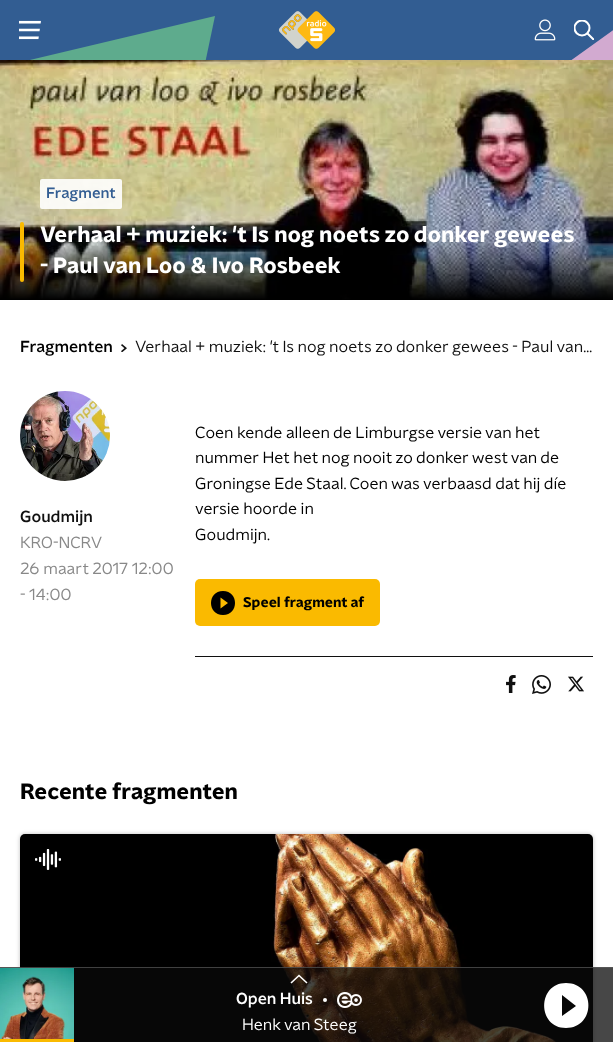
<!DOCTYPE html>
<meta charset="utf-8">
<style>body { margin: 0 } canvas { display: block }</style>
<canvas id="canvas" width="613" height="1042"></canvas>
<img id="img1" src="images/1.png" hidden>
<img id="img2" src="images/2.png" hidden>
<img id="img3" src="images/3.png" hidden>
<img id="img4" src="images/4.png" hidden>
<img id="img5" src="images/5.png" hidden>
<img id="img6" src="images/6.png" hidden>
<img id="img7" src="images/7.png" hidden>
<img id="img8" src="images/8.png" hidden>
<img id="img9" src="images/9.png" hidden>
<img id="img10" src="images/10.png" hidden>
<img id="img11" src="images/11.png" hidden>
<img id="img12" src="images/12.png" hidden>
<img id="img13" src="images/13.png" hidden>
<script>
window.onload = function () {
    const canvas = document.getElementById('canvas');
    const context = canvas.getContext('2d');
    context.miterLimit = 4;
    context.fontKerning = 'normal';

    context.fillStyle = 'rgb(255, 255, 255)';
    context.fillRect(0, 0, 613, 1042);
    context.fillStyle = 'rgb(50, 93, 146)';
    context.fillRect(0, 0, 613, 60);
    context.save();
    context.beginPath();
    context.rect(0, 16, 215, 44);
    context.clip();
    context.fillStyle = 'rgb(94, 171, 141)';
    context.beginPath();
    context.moveTo(215, 16);
    context.lineTo(127, 436);
    context.lineTo(-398, 560);
    context.lineTo(-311, 141);
    context.closePath();
    context.fill();
    context.restore();
    context.drawImage(document.getElementById('img1'), 19, 20, 22, 20);
    context.drawImage(document.getElementById('img2'), 278, 11, 57, 38);
    context.drawImage(document.getElementById('img3'), 534, 19, 22, 22);
    context.save();
    context.beginPath();
    context.rect(0, 0, 613, 60);
    context.clip();
    context.fillStyle = 'rgb(210, 170, 208)';
    context.beginPath();
    context.moveTo(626, 21);
    context.lineTo(168, 349);
    context.lineTo(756, 673);
    context.lineTo(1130, 447);
    context.lineTo(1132, 446);
    context.lineTo(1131, 445);
    context.closePath();
    context.fill();
    context.restore();
    context.save();
    context.beginPath();
    context.rect(574, 20, 20, 20);
    context.clip();
    context.beginPath();
    context.arc(582, 28, 7.5, 0, 2 * Math.PI);
    context.strokeStyle = 'rgb(255, 255, 255)';
    context.lineWidth = 2;
    context.stroke();
    context.beginPath();
    context.moveTo(587.5, 33.5);
    context.lineTo(593.5, 39.5);
    context.lineCap = 'square';
    context.stroke();
    context.restore();
    context.drawImage(document.getElementById('img4'), 0, 60, 613, 240);
    context.fillStyle = 'rgba(255, 255, 255, 0.9)';
    context.beginPath();
    context.roundRect(40, 179, 82, 30, 2);
    context.fill();
    context.fillStyle = 'rgb(250, 186, 0)';
    context.beginPath();
    context.roundRect(20, 222, 4, 60, 2);
    context.fill();
    context.drawImage(document.getElementById('img5'), 121, 344, 6, 8);
    context.drawImage(document.getElementById('img6'), 20, 391, 90, 90);
    context.beginPath();
    context.roundRect(195, 579, 185, 47, 5);
    context.fill();
    context.fillStyle = 'rgb(0, 0, 0)';
    context.beginPath();
    context.moveTo(223, 591);
    context.bezierCurveTo(207, 591, 207, 615, 223, 615);
    context.bezierCurveTo(239, 615, 239, 591, 223, 591);
    context.closePath();
    context.moveTo(220.5, 608.5);
    context.lineTo(220.5, 597.5);
    context.lineTo(228, 603);
    context.closePath();
    context.fill();
    context.fillStyle = 'rgb(16, 16, 16)';
    context.fillRect(195, 656, 398, 1);
    context.drawImage(document.getElementById('img7'), 506, 675, 10, 18);
    context.drawImage(document.getElementById('img8'), 532, 675, 19, 19);
    context.drawImage(document.getElementById('img9'), 568, 676, 16, 16);
    context.fillStyle = 'rgba(0, 0, 0, 0.25)';
    context.filter = 'blur(2px)';
    context.beginPath();
    context.roundRect(20, 834, 573, 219, 5);
    context.fill();
    context.filter = 'none';
    context.drawImage(document.getElementById('img10'), 20, 834, 573, 208);
    context.drawImage(document.getElementById('img11'), 35, 849, 26, 21);
    context.fillStyle = 'rgba(9, 9, 9, 0.75)';
    context.fillRect(0, 967, 613, 75);
    context.fillStyle = 'rgba(95, 95, 95, 0.65)';
    context.fillRect(0, 967, 613, 1);
    context.drawImage(document.getElementById('img12'), 0, 968, 74, 71);
    context.fillStyle = 'rgb(250, 186, 0)';
    context.fillRect(0, 1039, 74, 3);
    context.beginPath();
    context.moveTo(307, 983);
    context.lineTo(299, 975.5);
    context.lineTo(291, 983);
    context.strokeStyle = 'rgb(255, 255, 255)';
    context.lineWidth = 1.6;
    context.stroke();
    context.fillStyle = 'rgb(255, 255, 255)';
    context.beginPath();
    context.arc(325, 1000, 2, 0, 2 * Math.PI);
    context.fill();
    context.drawImage(document.getElementById('img13'), 337, 992, 25, 16);
    context.beginPath();
    context.moveTo(566, 983);
    context.bezierCurveTo(537, 983, 537, 1028, 566, 1028);
    context.bezierCurveTo(596, 1028, 596, 983, 566, 983);
    context.closePath();
    context.moveTo(562, 1016);
    context.lineTo(562, 995);
    context.lineTo(576, 1006);
    context.closePath();
    context.fill();
    context.font = '500 15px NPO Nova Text';
    context.fillStyle = 'rgb(50, 93, 146)';
    context.fillText('Fragment', 46, 198);
    context.font = 'bold 22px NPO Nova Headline';
    context.fillStyle = 'rgb(255, 255, 255)';
    context.fillText('Verhaal + muziek: \'t Is nog noets zo donker gewees', 40, 242);
    context.fillText('- Paul van Loo & Ivo Rosbeek', 40, 273);
    context.font = '500 16px NPO Nova Text';
    context.fillStyle = 'rgb(0, 0, 0)';
    context.fillText('Fragmenten', 20, 352);
    context.font = '16px NPO Nova Text';
    context.fillStyle = 'rgb(16, 16, 16)';
    context.fillText('Verhaal + muziek: \'t Is nog noets zo donker gewees - Paul van…', 135, 352);
    context.font = '500 16px NPO Nova Text';
    context.fillText('Goudmijn', 20, 522);
    context.font = '16px NPO Nova Text';
    context.fillStyle = 'rgb(136, 136, 136)';
    context.fillText('KRO-NCRV', 20, 548);
    context.fillText('26 maart 2017 12:00', 20, 574);
    context.fillText('- 14:00', 20, 600);
    context.fillStyle = 'rgb(0, 0, 0)';
    context.fillText('Coen kende alleen de Limburgse versie van het', 195, 438);
    context.fillText('nummer Het het nog nooit zo donker west van de', 195, 463);
    context.fillText('Groningse Ede Staal. Coen was verbaasd dat hij díe', 195, 489);
    context.fillText('versie hoorde in', 195, 514);
    context.fillText('Goudmijn.', 195, 540);
    context.font = 'bold 14px NPO Nova Headline';
    context.fillText('Speel fragment af', 243, 607);
    context.font = 'bold 22px NPO Nova Headline';
    context.fillText('Recente fragmenten', 20, 799);
    context.font = '500 16px NPO Nova Text';
    context.fillStyle = 'rgb(255, 255, 255)';
    context.fillText('Open Huis', 236, 1004);
    context.font = '16px NPO Nova Text';
    context.fillText('Henk van Steeg', 242, 1030);
};
</script>
